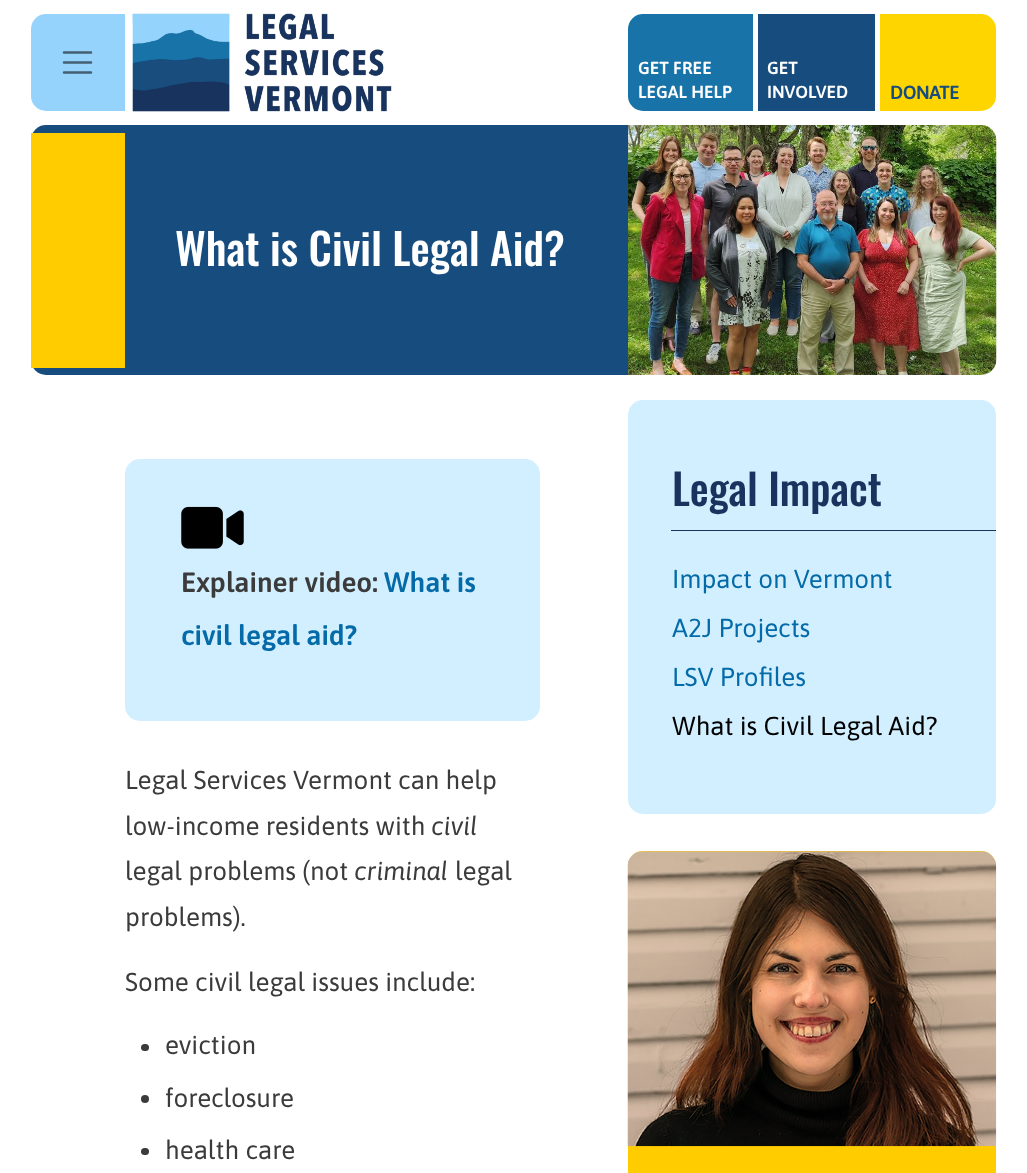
<!DOCTYPE html>
<meta charset="utf-8">
<style>body { margin: 0 } canvas { display: block }</style>
<canvas id="canvas" width="1027" height="1173"></canvas>
<img id="img1" src="images/1.png" hidden>
<img id="img2" src="images/2.png" hidden>
<img id="img3" src="images/3.png" hidden>
<img id="img4" src="images/4.png" hidden>
<script>
window.onload = function () {
    const canvas = document.getElementById('canvas');
    const context = canvas.getContext('2d');
    context.miterLimit = 4;
    context.fontKerning = 'normal';

    context.fillStyle = 'rgb(255, 255, 255)';
    context.fillRect(0, 0, 1027, 1173);
    context.fillStyle = 'rgb(150, 211, 252)';
    context.beginPath();
    context.roundRect(31, 14, 94, 97, [15, 0, 0, 15]);
    context.fill();
    context.beginPath();
    context.moveTo(64, 52.5);
    context.lineTo(91, 52.5);
    context.moveTo(64, 62.5);
    context.lineTo(91, 62.5);
    context.moveTo(64, 72.5);
    context.lineTo(91, 72.5);
    context.strokeStyle = 'rgb(68, 95, 113)';
    context.lineWidth = 2.5;
    context.lineCap = 'round';
    context.stroke();
    context.drawImage(document.getElementById('img1'), 132, 13, 260, 99);
    context.fillStyle = 'rgb(24, 115, 168)';
    context.beginPath();
    context.roundRect(628, 14, 125, 97, [15, 0, 0, 15]);
    context.fill();
    context.fillStyle = 'rgb(23, 77, 126)';
    context.fillRect(758, 14, 117, 97);
    context.fillStyle = 'rgb(255, 213, 0)';
    context.beginPath();
    context.roundRect(880, 14, 116, 97, [0, 15, 15, 0]);
    context.fill();
    context.fillStyle = 'rgb(23, 77, 126)';
    context.beginPath();
    context.roundRect(31, 125, 597, 250, [15, 0, 0, 15]);
    context.fill();
    context.fillStyle = 'rgb(255, 204, 0)';
    context.fillRect(31, 133, 94, 235);
    context.fillStyle = 'rgb(210, 239, 255)';
    context.beginPath();
    context.roundRect(125, 459, 415, 262, 15);
    context.fill();
    context.drawImage(document.getElementById('img2'), 181, 506, 63, 43);
    context.fillStyle = 'rgb(59, 59, 59)';
    context.beginPath();
    context.roundRect(141, 1044, 8, 7, 3.5);
    context.fill();
    context.beginPath();
    context.arc(145, 1099, 4, 0, 2 * Math.PI);
    context.fill();
    context.beginPath();
    context.roundRect(141, 1148, 8, 7, 3.5);
    context.fill();
    context.drawImage(document.getElementById('img3'), 628, 125, 369, 250);
    context.fillStyle = 'rgb(210, 239, 255)';
    context.beginPath();
    context.roundRect(628, 400, 368, 414, 15);
    context.fill();
    context.fillStyle = 'rgb(24, 51, 93)';
    context.fillRect(671, 530, 325, 1);
    context.fillStyle = 'rgb(255, 204, 0)';
    context.beginPath();
    context.roundRect(628, 851, 368, 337, 15);
    context.fill();
    context.drawImage(document.getElementById('img4'), 627, 851, 370, 296);
    context.font = '600 17.5px Asap';
    context.fillStyle = 'rgb(255, 255, 255)';
    context.fillText('GET FREE', 638, 74);
    context.fillText('LEGAL HELP', 638, 98);
    context.fillText('GET', 767, 74);
    context.fillText('INVOLVED', 767, 98);
    context.letterSpacing = '-0.5px';
    context.font = '600 19px Asap';
    context.fillStyle = 'rgb(23, 77, 126)';
    context.fillText('DONATE', 890, 99);
    context.letterSpacing = '0px';
    context.font = '500 43.25px Oswald';
    context.fillStyle = 'rgb(255, 255, 255)';
    context.fillText('What is Civil Legal Aid?', 175, 266);
    context.font = '600 28px Asap';
    context.fillStyle = 'rgb(59, 59, 59)';
    context.fillText('Explainer video:', 181, 592);
    context.fillStyle = 'rgb(4, 107, 168)';
    context.fillText('What is', 384, 592);
    context.fillText('civil legal aid?', 181, 645);
    context.font = '26px Asap';
    context.fillStyle = 'rgb(59, 59, 59)';
    context.fillText('Legal Services Vermont can help', 125, 789);
    context.fillText('low-income residents with', 125, 835);
    context.font = 'italic 26px Asap';
    context.fillText('civil', 431, 835);
    context.font = '26px Asap';
    context.fillText('legal problems (not', 125, 880);
    context.font = 'italic 26px Asap';
    context.fillText('criminal', 354, 880);
    context.font = '26px Asap';
    context.fillText('legal', 455, 880);
    context.fillText('problems).', 125, 926);
    context.fillText('Some civil legal issues include:', 125, 991);
    context.fillText('eviction', 165, 1054);
    context.fillText('foreclosure', 165, 1107);
    context.fillText('health care', 165, 1159);
    context.font = '500 42.5px Oswald';
    context.fillStyle = 'rgb(24, 51, 93)';
    context.fillText('Legal Impact', 672, 506);
    context.font = '26px Asap';
    context.fillStyle = 'rgb(4, 107, 168)';
    context.fillText('Impact on Vermont', 672, 588);
    context.fillText('A2J Projects', 672, 637);
    context.fillText('LSV Profiles', 672, 686);
    context.fillStyle = 'rgb(0, 0, 0)';
    context.fillText('What is Civil Legal Aid?', 672, 735);
};
</script>
